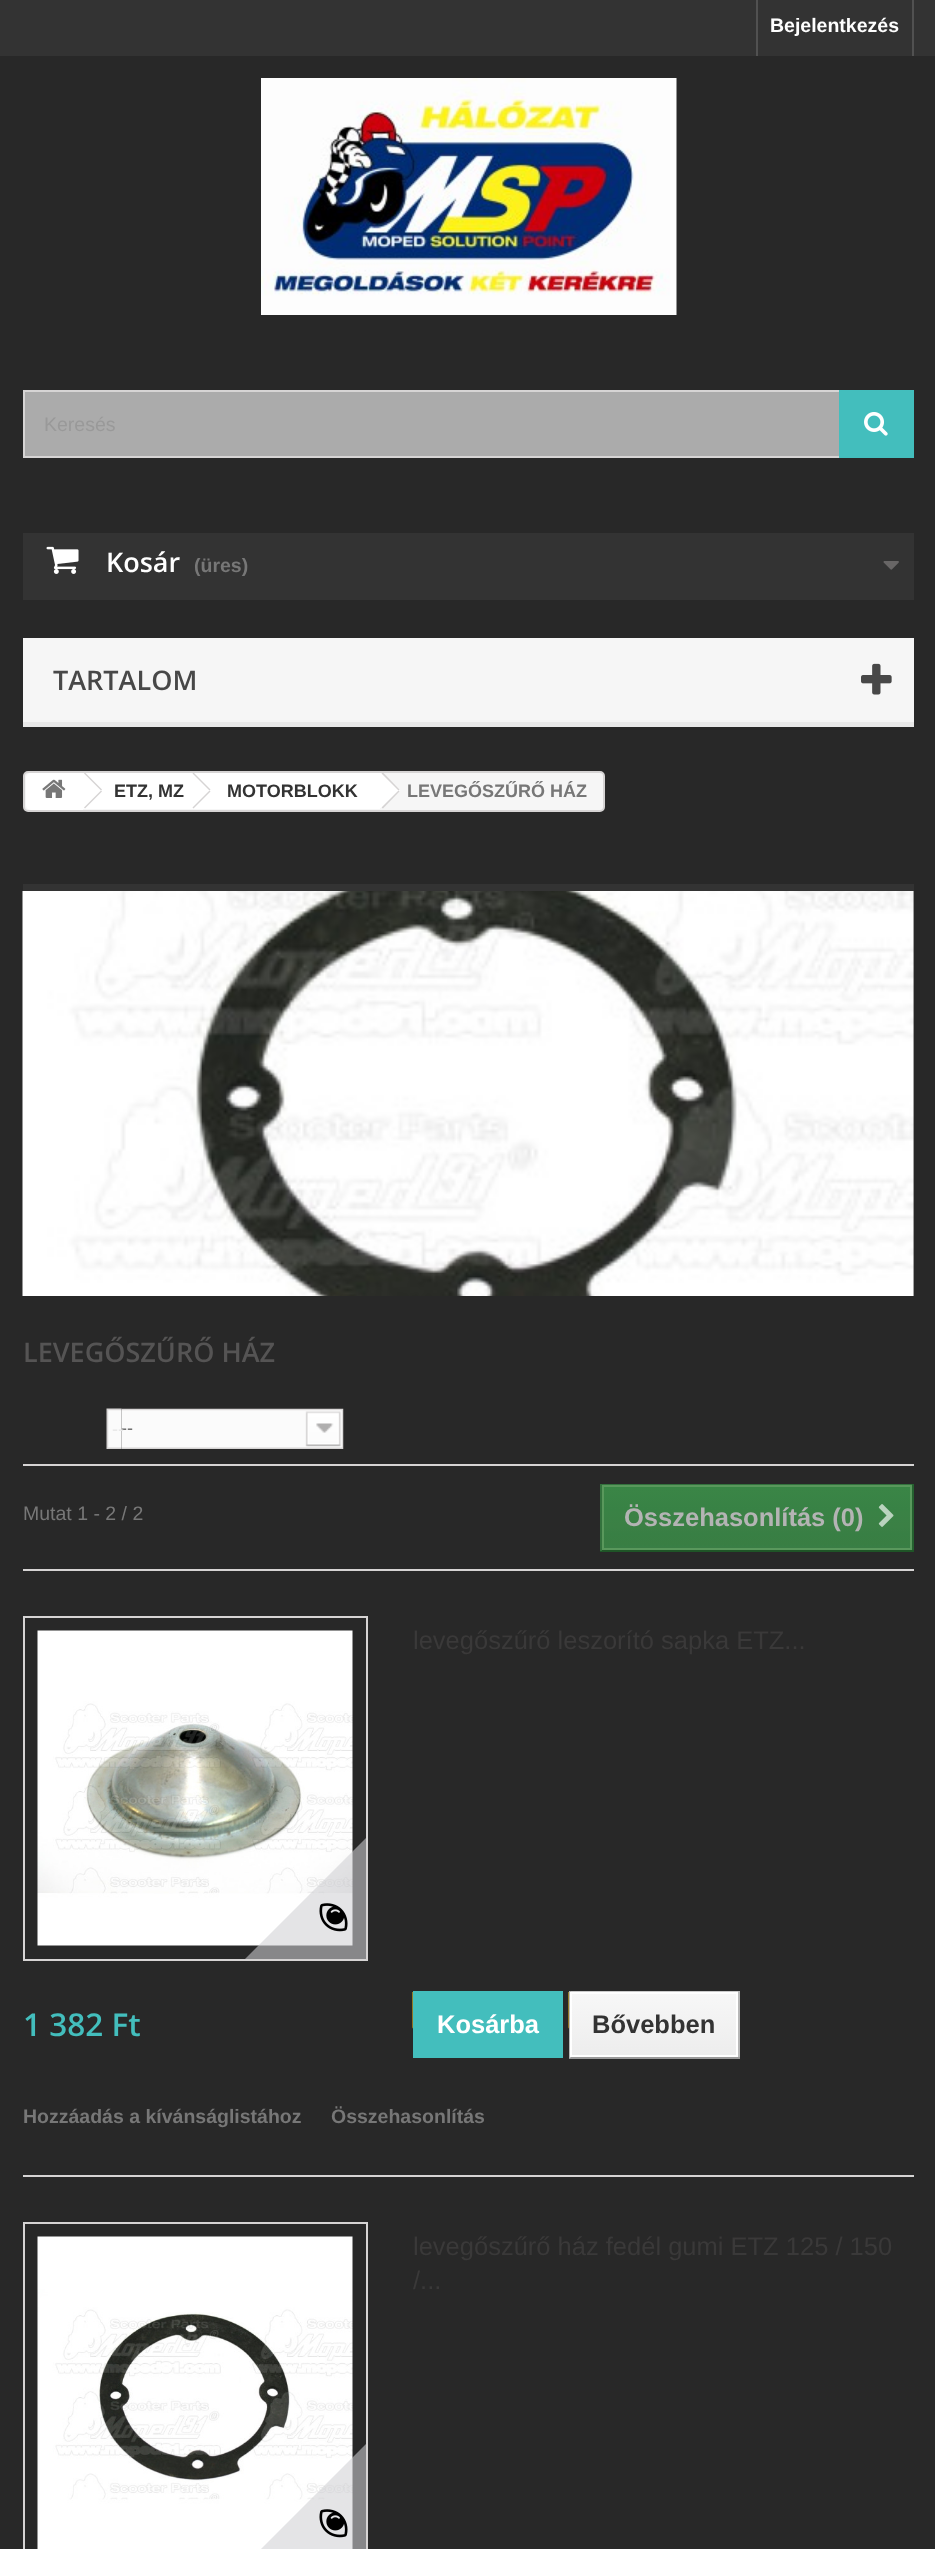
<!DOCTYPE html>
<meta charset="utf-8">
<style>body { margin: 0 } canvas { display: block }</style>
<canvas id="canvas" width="935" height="2549"></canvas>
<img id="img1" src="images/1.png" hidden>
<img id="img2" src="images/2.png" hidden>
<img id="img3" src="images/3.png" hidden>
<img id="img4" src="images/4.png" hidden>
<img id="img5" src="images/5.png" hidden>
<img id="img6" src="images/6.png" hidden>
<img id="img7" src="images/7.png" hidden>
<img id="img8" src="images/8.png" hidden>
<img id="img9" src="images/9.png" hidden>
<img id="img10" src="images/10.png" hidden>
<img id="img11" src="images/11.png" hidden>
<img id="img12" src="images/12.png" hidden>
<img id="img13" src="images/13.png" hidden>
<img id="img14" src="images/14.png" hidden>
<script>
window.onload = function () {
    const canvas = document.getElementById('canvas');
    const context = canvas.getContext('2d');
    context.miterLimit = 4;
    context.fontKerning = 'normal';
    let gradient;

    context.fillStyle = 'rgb(40, 40, 40)';
    context.fillRect(0, 0, 935, 2549);
    context.fillStyle = 'rgb(51, 51, 51)';
    context.fillRect(0, 0, 935, 56);
    context.fillStyle = 'rgb(81, 81, 81)';
    context.fillRect(912, 0, 2, 56);
    context.fillRect(756, 0, 2, 56);
    context.drawImage(document.getElementById('img1'), 261, 78, 416, 237);
    context.fillStyle = 'rgb(171, 171, 171)';
    context.fillRect(25, 392, 814, 64);
    context.strokeStyle = 'rgb(214, 212, 212)';
    context.lineWidth = 2;
    context.strokeRect(24, 391, 889, 66);
    context.fillStyle = 'rgb(67, 190, 189)';
    context.fillRect(839, 390, 75, 68);
    context.drawImage(document.getElementById('img2'), 864, 412, 24, 24);
    context.fillStyle = 'rgb(51, 51, 51)';
    context.fillRect(23, 533, 891, 67);
    context.drawImage(document.getElementById('img3'), 46, 546, 33, 28);
    context.drawImage(document.getElementById('img4'), 883, 561, 16, 9);
    context.fillStyle = 'rgb(246, 246, 246)';
    context.fillRect(23, 638, 891, 84);
    context.fillStyle = 'rgb(233, 233, 233)';
    context.fillRect(23, 722, 891, 5);
    context.drawImage(document.getElementById('img5'), 861, 663, 31, 32);
    context.fillStyle = 'rgb(246, 246, 246)';
    context.beginPath();
    context.roundRect(24, 772, 580, 39, 4);
    context.fill();
    context.stroke();
    context.fillStyle = 'rgb(255, 255, 255)';
    context.beginPath();
    context.roundRect(26, 773, 57, 37, [5, 0, 0, 5]);
    context.fill();
    context.drawImage(document.getElementById('img6'), 42, 779, 24, 19);
    context.fillRect(83, 773, 111, 36);
    context.fillStyle = 'rgb(214, 212, 212)';
    context.beginPath();
    context.moveTo(85, 772.5);
    context.lineTo(102, 789.5);
    context.lineTo(101, 790.5);
    context.lineTo(84, 773.5);
    context.closePath();
    context.fill();
    context.beginPath();
    context.moveTo(101, 790.5);
    context.lineTo(102, 791.5);
    context.lineTo(85, 808.5);
    context.lineTo(84, 807.5);
    context.closePath();
    context.fill();
    context.fillStyle = 'rgb(255, 255, 255)';
    context.beginPath();
    context.moveTo(209.5, 773.5);
    context.lineTo(209, 773);
    context.lineTo(206, 773);
    context.lineTo(205.5, 773.5);
    context.lineTo(190.5, 788.5);
    context.bezierCurveTo(189.5, 789.5, 189.5, 791.5, 190.5, 792.5);
    context.lineTo(205.5, 807.5);
    context.bezierCurveTo(206.5, 808.5, 208.5, 808.5, 209.5, 807.5);
    context.lineTo(224.5, 792.5);
    context.bezierCurveTo(225.5, 791.5, 225.5, 789.5, 224.5, 788.5);
    context.closePath();
    context.fill();
    context.fillRect(194, 773, 186, 36);
    context.fillStyle = 'rgb(214, 212, 212)';
    context.beginPath();
    context.moveTo(193.5, 772.5);
    context.lineTo(210.5, 789.5);
    context.lineTo(209.5, 790.5);
    context.lineTo(192.5, 773.5);
    context.closePath();
    context.fill();
    context.beginPath();
    context.moveTo(209.5, 790.5);
    context.lineTo(210.5, 791.5);
    context.lineTo(193.5, 808.5);
    context.lineTo(192.5, 807.5);
    context.closePath();
    context.fill();
    context.fillStyle = 'rgb(255, 255, 255)';
    context.beginPath();
    context.moveTo(384, 773.5);
    context.lineTo(383, 773);
    context.lineTo(380.5, 773);
    context.lineTo(379.5, 773.5);
    context.lineTo(364.5, 788.5);
    context.bezierCurveTo(363.5, 789.5, 363.5, 791.5, 364.5, 792.5);
    context.lineTo(379.5, 807.5);
    context.bezierCurveTo(381, 808.5, 382.5, 808.5, 384, 807.5);
    context.lineTo(398.5, 792.5);
    context.bezierCurveTo(400, 791.5, 400, 789.5, 398.5, 788.5);
    context.closePath();
    context.fill();
    context.fillStyle = 'rgb(214, 212, 212)';
    context.beginPath();
    context.moveTo(383.5, 773);
    context.lineTo(399.5, 789.5);
    context.lineTo(398.5, 790.5);
    context.lineTo(381.5, 773.5);
    context.lineTo(382, 773);
    context.closePath();
    context.fill();
    context.beginPath();
    context.moveTo(398.5, 790.5);
    context.lineTo(399.5, 791.5);
    context.lineTo(383, 808.5);
    context.lineTo(381.5, 807.5);
    context.closePath();
    context.fill();
    context.fillStyle = 'rgb(51, 51, 51)';
    context.fillRect(23, 884, 891, 7);
    context.fillStyle = 'rgb(70, 70, 70)';
    context.fillRect(913, 891, 1, 405);
    context.drawImage(document.getElementById('img7'), 22, 891, 892, 405);
    context.fillStyle = 'rgb(214, 212, 212)';
    context.fillRect(23, 1464, 891, 2);
    context.drawImage(document.getElementById('img8'), 106, 1408, 16, 41);
    context.drawImage(document.getElementById('img9'), 121, 1408, 223, 41);
    gradient = context.createLinearGradient(757, 1485, 757, 1550);
    gradient.addColorStop(0, 'rgb(58, 133, 69)');
    gradient.addColorStop(0.02, 'rgb(56, 133, 71)');
    gradient.addColorStop(0.04, 'rgb(56, 134, 69)');
    gradient.addColorStop(0.06, 'rgb(58, 133, 70)');
    gradient.addColorStop(0.38, 'rgb(56, 130, 69)');
    gradient.addColorStop(0.4, 'rgb(58, 130, 69)');
    gradient.addColorStop(0.66, 'rgb(59, 128, 69)');
    gradient.addColorStop(0.74, 'rgb(56, 127, 68)');
    gradient.addColorStop(0.91, 'rgb(57, 126, 67)');
    gradient.addColorStop(0.94, 'rgb(56, 127, 69)');
    gradient.addColorStop(0.96, 'rgb(58, 125, 69)');
    gradient.addColorStop(1, 'rgb(57, 126, 67)');
    context.fillStyle = gradient;
    context.fillRect(604, 1487, 306, 61);
    context.fillStyle = 'rgb(51, 114, 61)';
    context.fillRect(600, 1484, 314, 1);
    context.fillStyle = 'rgb(37, 97, 47)';
    context.fillRect(912, 1484, 2, 67);
    context.fillStyle = 'rgb(31, 85, 39)';
    context.fillRect(600, 1550, 314, 2);
    context.fillStyle = 'rgb(51, 114, 61)';
    context.fillRect(600, 1484, 2, 67);
    context.strokeStyle = 'rgb(89, 152, 92)';
    context.strokeRect(603, 1486, 308, 63);
    context.drawImage(document.getElementById('img10'), 878, 1504, 16, 23);
    context.fillStyle = 'rgb(214, 212, 212)';
    context.fillRect(23, 1569, 891, 2);
    context.strokeStyle = 'rgb(214, 212, 212)';
    context.strokeRect(24, 1617, 343, 343);
    context.drawImage(document.getElementById('img11'), 37, 1630, 316, 316);
    context.save();
    context.beginPath();
    context.rect(44, 1727, 322, 232);
    context.clip();
    context.fillStyle = 'rgba(208, 208, 211, 0.57)';
    context.beginPath();
    context.moveTo(374, 1830);
    context.lineTo(464, 1920);
    context.lineTo(326, 2058);
    context.lineTo(236, 1968);
    context.closePath();
    context.fill();
    context.restore();
    context.drawImage(document.getElementById('img12'), 319, 1903, 29, 29);
    context.drawImage(document.getElementById('img13'), 412, 1992, 1, 37);
    context.strokeStyle = 'rgb(67, 190, 189)';
    context.strokeRect(414, 1992, 148, 65);
    context.fillStyle = 'rgb(67, 190, 189)';
    context.fillRect(415, 1993, 146, 63);
    context.drawImage(document.getElementById('img13'), 568, 1992, 1, 37);
    context.fillStyle = 'rgb(202, 202, 202)';
    context.fillRect(569, 1991, 171, 1);
    context.fillStyle = 'rgb(183, 183, 183)';
    context.fillRect(738, 1991, 2, 67);
    context.fillStyle = 'rgb(154, 154, 154)';
    context.fillRect(569, 2057, 171, 2);
    context.fillStyle = 'rgb(183, 183, 183)';
    context.fillRect(569, 1991, 2, 67);
    gradient = context.createLinearGradient(654, 1994, 654, 2055);
    gradient.addColorStop(0, 'rgb(247, 247, 247)');
    gradient.addColorStop(1, 'rgb(237, 237, 237)');
    context.fillStyle = gradient;
    context.fillRect(572, 1994, 164, 61);
    context.strokeStyle = 'rgb(255, 255, 255)';
    context.strokeRect(571, 1993, 166, 63);
    context.fillStyle = 'rgb(214, 212, 212)';
    context.fillRect(23, 2175, 891, 2);
    context.strokeStyle = 'rgb(214, 212, 212)';
    context.strokeRect(24, 2223, 343, 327);
    context.drawImage(document.getElementById('img14'), 37, 2236, 316, 313);
    context.save();
    context.beginPath();
    context.rect(44, 2333, 322, 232);
    context.clip();
    context.fillStyle = 'rgba(208, 208, 211, 0.57)';
    context.beginPath();
    context.moveTo(374, 2436);
    context.lineTo(464, 2526);
    context.lineTo(326, 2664);
    context.lineTo(236, 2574);
    context.closePath();
    context.fill();
    context.restore();
    context.drawImage(document.getElementById('img12'), 319, 2509, 29, 29);
    context.font = 'bold 19.5px Liberation Sans';
    context.fillStyle = 'rgb(255, 255, 255)';
    context.fillText('Bejelentkezés', 770, 32);
    context.font = '19.5px Liberation Sans';
    context.fillStyle = 'rgb(153, 153, 153)';
    context.fillText('Keresés', 44, 431);
    context.font = '600 27px Open Sans';
    context.fillStyle = 'rgb(255, 255, 255)';
    context.fillText('Kosár', 106, 572);
    context.font = 'bold 19.5px Liberation Sans';
    context.fillStyle = 'rgb(119, 119, 119)';
    context.fillText('(üres)', 194, 572);
    context.font = '600 27px Open Sans';
    context.fillStyle = 'rgb(72, 72, 72)';
    context.fillText('TARTALOM', 53, 690);
    context.font = 'bold 18px Liberation Sans';
    context.fillStyle = 'rgb(51, 51, 51)';
    context.fillText('ETZ, MZ', 114, 797);
    context.fillText('MOTORBLOKK', 227, 797);
    context.fillStyle = 'rgb(119, 119, 119)';
    context.fillText('LEVEGŐSZŰRŐ HÁZ', 407, 797);
    context.font = '600 27px Open Sans';
    context.fillStyle = 'rgb(85, 84, 84)';
    context.fillText('LEVEGŐSZŰRŐ HÁZ', 23, 1362);
    context.font = '18px Liberation Sans';
    context.fillStyle = 'rgb(102, 102, 102)';
    context.fillText('--', 121, 1434);
    context.fillStyle = 'rgb(232, 232, 232)';
    context.fillText('--', 112, 1435);
    context.font = '19.5px Liberation Sans';
    context.fillStyle = 'rgb(119, 119, 119)';
    context.fillText('Mutat 1 - 2 / 2', 23, 1520);
    context.font = 'bold 25.5px Liberation Sans';
    context.fillStyle = 'rgb(180, 180, 180)';
    context.fillText('Összehasonlítás (0)', 624, 1526);
    context.font = '25.5px Liberation Sans';
    context.fillStyle = 'rgb(58, 57, 57)';
    context.fillText('levegőszűrő leszorító sapka ETZ...', 413, 1649);
    context.font = '600 31.5px Open Sans';
    context.fillStyle = 'rgb(67, 190, 189)';
    context.fillText('1 382 Ft', 23, 2036);
    context.font = 'bold 25.5px Liberation Sans';
    context.fillStyle = 'rgb(255, 255, 255)';
    context.fillText('Kosárba', 437, 2033);
    context.fillStyle = 'rgb(51, 51, 51)';
    context.fillText('Bővebben', 592, 2033);
    context.font = 'bold 19.5px Liberation Sans';
    context.fillStyle = 'rgb(119, 119, 119)';
    context.fillText('Hozzáadás a kívánságlistához', 23, 2123);
    context.fillText('Összehasonlítás', 331, 2123);
    context.font = '25.5px Liberation Sans';
    context.fillStyle = 'rgb(58, 57, 57)';
    context.fillText('levegőszűrő ház fedél gumi ETZ 125 / 150', 413, 2255);
    context.fillText('/...', 413, 2289);
};
</script>
